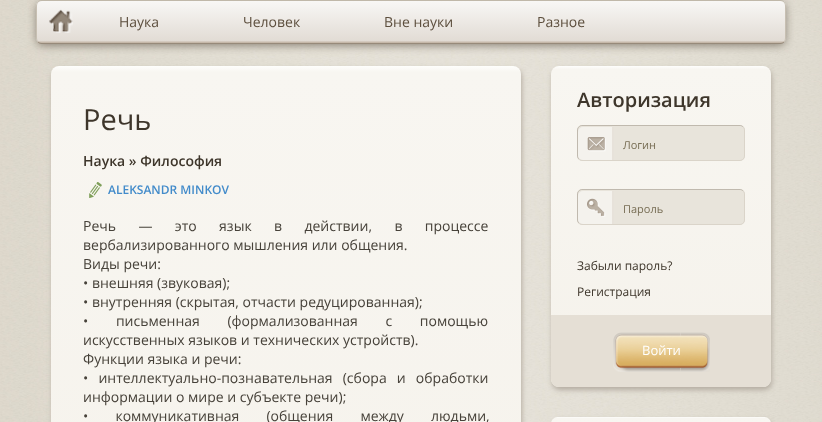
<!DOCTYPE html>
<meta charset="utf-8">
<style>body { margin: 0 } canvas { display: block }</style>
<canvas id="canvas" width="822" height="422"></canvas>
<img id="img1" src="images/1.png" hidden>
<img id="img2" src="images/2.png" hidden>
<img id="img3" src="images/3.png" hidden>
<img id="img4" src="images/4.png" hidden>
<img id="img5" src="images/5.png" hidden>
<img id="img6" src="images/6.png" hidden>
<img id="img7" src="images/7.png" hidden>
<script>
window.onload = function () {
    const canvas = document.getElementById('canvas');
    const context = canvas.getContext('2d');
    context.miterLimit = 4;
    context.fontKerning = 'normal';
    let gradient;

    context.fillStyle = 'rgb(255, 255, 255)';
    context.fillRect(0, 0, 822, 422);
    context.drawImage(document.getElementById('img1'), 0, 0, 822, 422);
    context.fillStyle = 'rgb(128, 119, 106)';
    context.filter = 'blur(5px)';
    context.beginPath();
    context.roundRect(37, 3, 748, 42, 5);
    context.fill();
    context.filter = 'none';
    context.save();
    context.beginPath();
    context.roundRect(36, 0, 750, 44, 6);
    context.clip();
    gradient = context.createLinearGradient(411, 1, 411, 43);
    gradient.addColorStop(0, 'rgb(248, 247, 245)');
    gradient.addColorStop(0.94, 'rgb(226, 220, 213)');
    gradient.addColorStop(1, 'rgb(191, 176, 159)');
    context.fillStyle = gradient;
    context.fillRect(36, 1, 750, 42);
    context.restore();
    context.beginPath();
    context.moveTo(38, 2);
    context.bezierCurveTo(39, 1, 40.5, 0.5, 42, 0.5);
    context.lineTo(780, 0.5);
    context.bezierCurveTo(781.5, 0.5, 783, 1, 784, 2);
    context.strokeStyle = 'rgb(192, 184, 169)';
    context.stroke();
    context.beginPath();
    context.moveTo(784, 2);
    context.bezierCurveTo(785, 3, 785.5, 4.5, 785.5, 6);
    context.lineTo(785.5, 38);
    context.bezierCurveTo(785.5, 39.5, 785, 41, 784, 42);
    context.strokeStyle = 'rgb(199, 191, 178)';
    context.stroke();
    context.beginPath();
    context.moveTo(784, 42);
    context.bezierCurveTo(783, 43, 781.5, 43.5, 780, 43.5);
    context.lineTo(42, 43.5);
    context.bezierCurveTo(40.5, 43.5, 39, 43, 38, 42);
    context.strokeStyle = 'rgb(151, 138, 122)';
    context.stroke();
    context.beginPath();
    context.moveTo(38, 42);
    context.bezierCurveTo(37, 41, 36.5, 39.5, 36.5, 38);
    context.lineTo(36.5, 6);
    context.bezierCurveTo(36.5, 4.5, 37, 3, 38, 2);
    context.strokeStyle = 'rgb(199, 191, 178)';
    context.stroke();
    context.drawImage(document.getElementById('img2'), 49, 9, 24, 24);
    context.fillStyle = 'rgb(181, 173, 162)';
    context.filter = 'blur(2.5px)';
    context.beginPath();
    context.roundRect(52, 69, 470, 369, 8);
    context.fill();
    context.filter = 'none';
    gradient = context.createLinearGradient(286, 66, 286, 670);
    gradient.addColorStop(0, 'rgb(254, 254, 252)');
    gradient.addColorStop(0.01, 'rgb(248, 246, 241)');
    gradient.addColorStop(1, 'rgb(245, 242, 235)');
    context.fillStyle = gradient;
    context.beginPath();
    context.roundRect(51, 66, 470, 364, 8);
    context.fill();
    context.drawImage(document.getElementById('img3'), 89, 182, 13, 16);
    context.fillStyle = 'rgb(181, 173, 162)';
    context.filter = 'blur(2.5px)';
    context.beginPath();
    context.roundRect(552, 69, 220, 321, 8);
    context.fill();
    context.filter = 'none';
    gradient = context.createLinearGradient(661, 66, 661, 387);
    gradient.addColorStop(0, 'rgb(254, 254, 252)');
    gradient.addColorStop(0.01, 'rgb(248, 246, 241)');
    gradient.addColorStop(1, 'rgb(245, 242, 235)');
    context.fillStyle = gradient;
    context.beginPath();
    context.roundRect(551, 66, 220, 321, 8);
    context.fill();
    context.fillStyle = 'rgb(232, 228, 219)';
    context.beginPath();
    context.roundRect(577, 125, 168, 36, 5);
    context.fill();
    context.beginPath();
    context.moveTo(743, 127);
    context.bezierCurveTo(744, 127.5, 744.5, 129, 744.5, 130);
    context.lineTo(744.5, 156);
    context.bezierCurveTo(744.5, 157, 744, 158.5, 743, 159);
    context.bezierCurveTo(742.5, 160, 741, 160.5, 740, 160.5);
    context.lineTo(582, 160.5);
    context.bezierCurveTo(581, 160.5, 579.5, 160, 579, 159);
    context.strokeStyle = 'rgb(218, 212, 201)';
    context.stroke();
    context.beginPath();
    context.moveTo(579, 159);
    context.bezierCurveTo(578, 158.5, 577.5, 157, 577.5, 156);
    context.lineTo(577.5, 130);
    context.bezierCurveTo(577.5, 129, 578, 127.5, 579, 127);
    context.bezierCurveTo(579.5, 126, 581, 125.5, 582, 125.5);
    context.lineTo(740, 125.5);
    context.bezierCurveTo(741, 125.5, 742.5, 126, 743, 127);
    context.strokeStyle = 'rgb(192, 185, 174)';
    context.stroke();
    context.fillStyle = 'rgba(255, 255, 255, 0.5)';
    context.beginPath();
    context.roundRect(578, 127, 36, 33, [5, 0, 0, 5]);
    context.fill();
    context.drawImage(document.getElementById('img4'), 587, 137, 19, 15);
    context.fillStyle = 'rgb(231, 226, 218)';
    context.fillRect(612, 127, 2, 33);
    context.fillStyle = 'rgb(232, 228, 219)';
    context.beginPath();
    context.roundRect(577, 189, 168, 36, 5);
    context.fill();
    context.beginPath();
    context.moveTo(743, 191);
    context.bezierCurveTo(744, 191.5, 744.5, 193, 744.5, 194);
    context.lineTo(744.5, 220);
    context.bezierCurveTo(744.5, 221, 744, 222.5, 743, 223);
    context.bezierCurveTo(742.5, 224, 741, 224.5, 740, 224.5);
    context.lineTo(582, 224.5);
    context.bezierCurveTo(581, 224.5, 579.5, 224, 579, 223);
    context.strokeStyle = 'rgb(218, 212, 201)';
    context.stroke();
    context.beginPath();
    context.moveTo(579, 223);
    context.bezierCurveTo(578, 222.5, 577.5, 221, 577.5, 220);
    context.lineTo(577.5, 194);
    context.bezierCurveTo(577.5, 193, 578, 191.5, 579, 191);
    context.bezierCurveTo(579.5, 190, 581, 189.5, 582, 189.5);
    context.lineTo(740, 189.5);
    context.bezierCurveTo(741, 189.5, 742.5, 190, 743, 191);
    context.strokeStyle = 'rgb(192, 185, 174)';
    context.stroke();
    context.fillStyle = 'rgba(255, 255, 255, 0.5)';
    context.beginPath();
    context.roundRect(578, 191, 36, 33, [5, 0, 0, 5]);
    context.fill();
    context.drawImage(document.getElementById('img5'), 587, 198, 19, 19);
    context.fillStyle = 'rgb(231, 226, 218)';
    context.fillRect(612, 191, 2, 33);
    context.fillStyle = 'rgb(229, 223, 213)';
    context.beginPath();
    context.roundRect(551, 315, 220, 72, [0, 0, 8, 8]);
    context.fill();
    context.drawImage(document.getElementById('img6'), 678, 332, 32, 40);
    context.drawImage(document.getElementById('img7'), 613, 332, 67, 40);
    context.fillStyle = 'rgb(181, 173, 162)';
    context.filter = 'blur(2.5px)';
    context.beginPath();
    context.roundRect(552, 420, 220, 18, 8);
    context.fill();
    context.filter = 'none';
    gradient = context.createLinearGradient(661, 417, 661, 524);
    gradient.addColorStop(0, 'rgb(254, 254, 252)');
    gradient.addColorStop(0.01, 'rgb(248, 246, 241)');
    gradient.addColorStop(1, 'rgb(245, 242, 235)');
    context.fillStyle = gradient;
    context.beginPath();
    context.roundRect(551, 417, 220, 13, 8);
    context.fill();
    context.font = '14px Open Sans';
    context.fillStyle = 'rgb(93, 79, 62)';
    context.fillText('Наука', 119, 27);
    context.fillText('Человек', 243, 27);
    context.fillText('Вне науки', 384, 27);
    context.fillText('Разное', 537, 27);
    context.font = '29px Open Sans';
    context.fillStyle = 'rgb(62, 54, 43)';
    context.fillText('Речь', 83, 130);
    context.font = '600 14px Open Sans';
    context.fillText('Наука » Философия', 83, 166);
    context.font = '600 12px Open Sans';
    context.fillStyle = 'rgb(66, 139, 202)';
    context.fillText('ALEKSANDR MINKOV', 108, 194);
    context.wordSpacing = '18.75px';
    context.font = '14px Open Sans';
    context.fillStyle = 'rgb(71, 66, 58)';
    context.fillText('Речь — это язык в действии, в процессе', 83, 231);
    context.wordSpacing = '0px';
    context.fillText('вербализированного мышления или общения.', 83, 250);
    context.fillText('Виды речи:', 83, 269);
    context.fillText('• внешняя (звуковая);', 83, 288);
    context.fillText('• внутренняя (скрытая, отчасти редуцированная);', 83, 307);
    context.wordSpacing = '24px';
    context.fillText('• письменная (формализованная с помощью', 83, 326);
    context.wordSpacing = '0px';
    context.fillText('искусственных языков и технических устройств).', 83, 345);
    context.fillText('Функции языка и речи:', 83, 364);
    context.wordSpacing = '6.5px';
    context.fillText('• интеллектуально-познавательная (сбора и обработки', 83, 383);
    context.wordSpacing = '0px';
    context.fillText('информации о мире и субъекте речи);', 83, 402);
    context.wordSpacing = '23.5px';
    context.fillText('• коммуникативная (общения между людьми,', 83, 421);
    context.wordSpacing = '0px';
    context.font = '600 20px Open Sans';
    context.fillStyle = 'rgb(62, 54, 43)';
    context.fillText('Авторизация', 577, 107);
    context.font = '11px Open Sans';
    context.fillStyle = 'rgb(120, 110, 85)';
    context.fillText('Логин', 623, 149);
    context.fillText('Пароль', 623, 213);
    context.font = '12px Open Sans';
    context.fillStyle = 'rgb(62, 54, 43)';
    context.fillText('Забыли пароль?', 577, 270);
    context.fillText('Регистрация', 577, 296);
    context.font = '13px Open Sans';
    context.fillStyle = 'rgb(255, 255, 255)';
    context.fillText('Войти', 642, 355);
};
</script>
